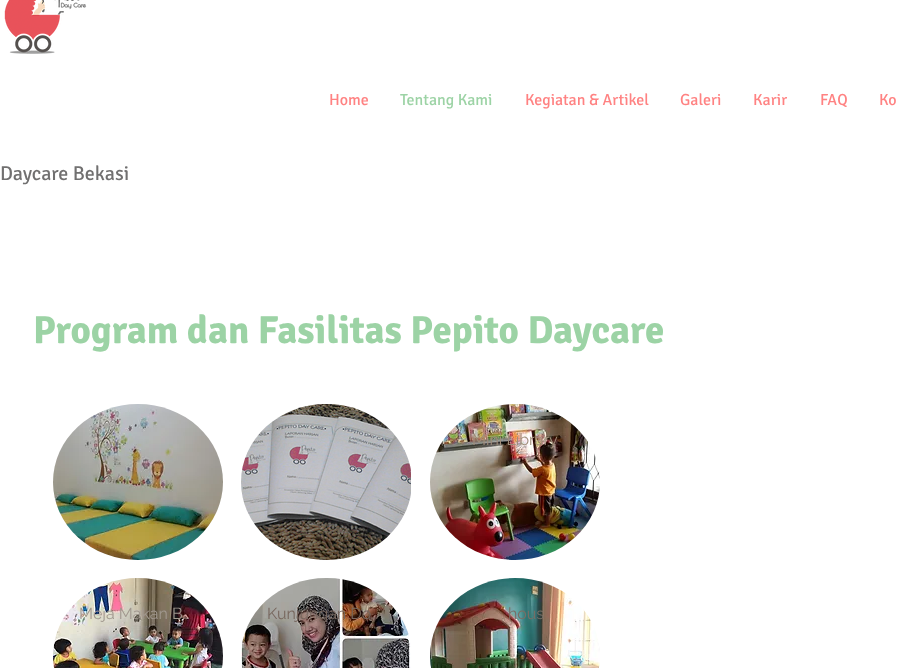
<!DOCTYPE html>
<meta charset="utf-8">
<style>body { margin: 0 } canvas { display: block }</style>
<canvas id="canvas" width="897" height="668"></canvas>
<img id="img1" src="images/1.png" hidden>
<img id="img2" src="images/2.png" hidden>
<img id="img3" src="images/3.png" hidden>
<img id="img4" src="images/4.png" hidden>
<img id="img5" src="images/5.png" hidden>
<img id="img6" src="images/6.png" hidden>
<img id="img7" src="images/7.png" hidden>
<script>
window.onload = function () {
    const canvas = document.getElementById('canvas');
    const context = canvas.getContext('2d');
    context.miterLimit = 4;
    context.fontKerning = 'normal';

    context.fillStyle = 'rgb(255, 255, 255)';
    context.fillRect(0, 0, 897, 668);
    context.drawImage(document.getElementById('img1'), 4, 0, 83, 54);
    context.drawImage(document.getElementById('img2'), 53, 404, 170, 156);
    context.drawImage(document.getElementById('img3'), 241, 404, 170, 156);
    context.drawImage(document.getElementById('img4'), 430, 404, 170, 156);
    context.drawImage(document.getElementById('img5'), 53, 578, 170, 90);
    context.drawImage(document.getElementById('img6'), 241, 578, 170, 90);
    context.drawImage(document.getElementById('img7'), 430, 578, 170, 90);
    context.font = '16px Signika';
    context.fillStyle = 'rgb(255, 130, 130)';
    context.fillText('Home', 329, 105);
    context.fillStyle = 'rgb(156, 211, 165)';
    context.fillText('Tentang Kami', 400, 105);
    context.fillStyle = 'rgb(255, 130, 130)';
    context.fillText('Kegiatan & Artikel', 525, 105);
    context.fillText('Galeri', 680, 105);
    context.fillText('Karir', 753, 105);
    context.fillText('FAQ', 820, 105);
    context.fillText('Ko', 879, 105);
    context.font = '20px Signika';
    context.fillStyle = 'rgb(113, 112, 112)';
    context.fillText('Daycare Bekasi', 0, 180);
    context.font = 'bold 39px Signika';
    context.fillStyle = 'rgb(156, 211, 165)';
    context.fillText('Program dan Fasilitas Pepito Daycare', 33, 343);
    context.font = '16px Raleway';
    context.fillStyle = 'rgb(160, 141, 122)';
    context.fillText('Mini Library', 472, 445);
    context.fillStyle = 'rgb(161, 152, 143)';
    context.fillText('Meja Makan B…', 79, 619);
    context.fillStyle = 'rgb(119, 103, 94)';
    context.fillText('Kunjungan Do…', 267, 619);
    context.fillStyle = 'rgb(120, 111, 102)';
    context.fillText('hous', 508, 619);
};
</script>
